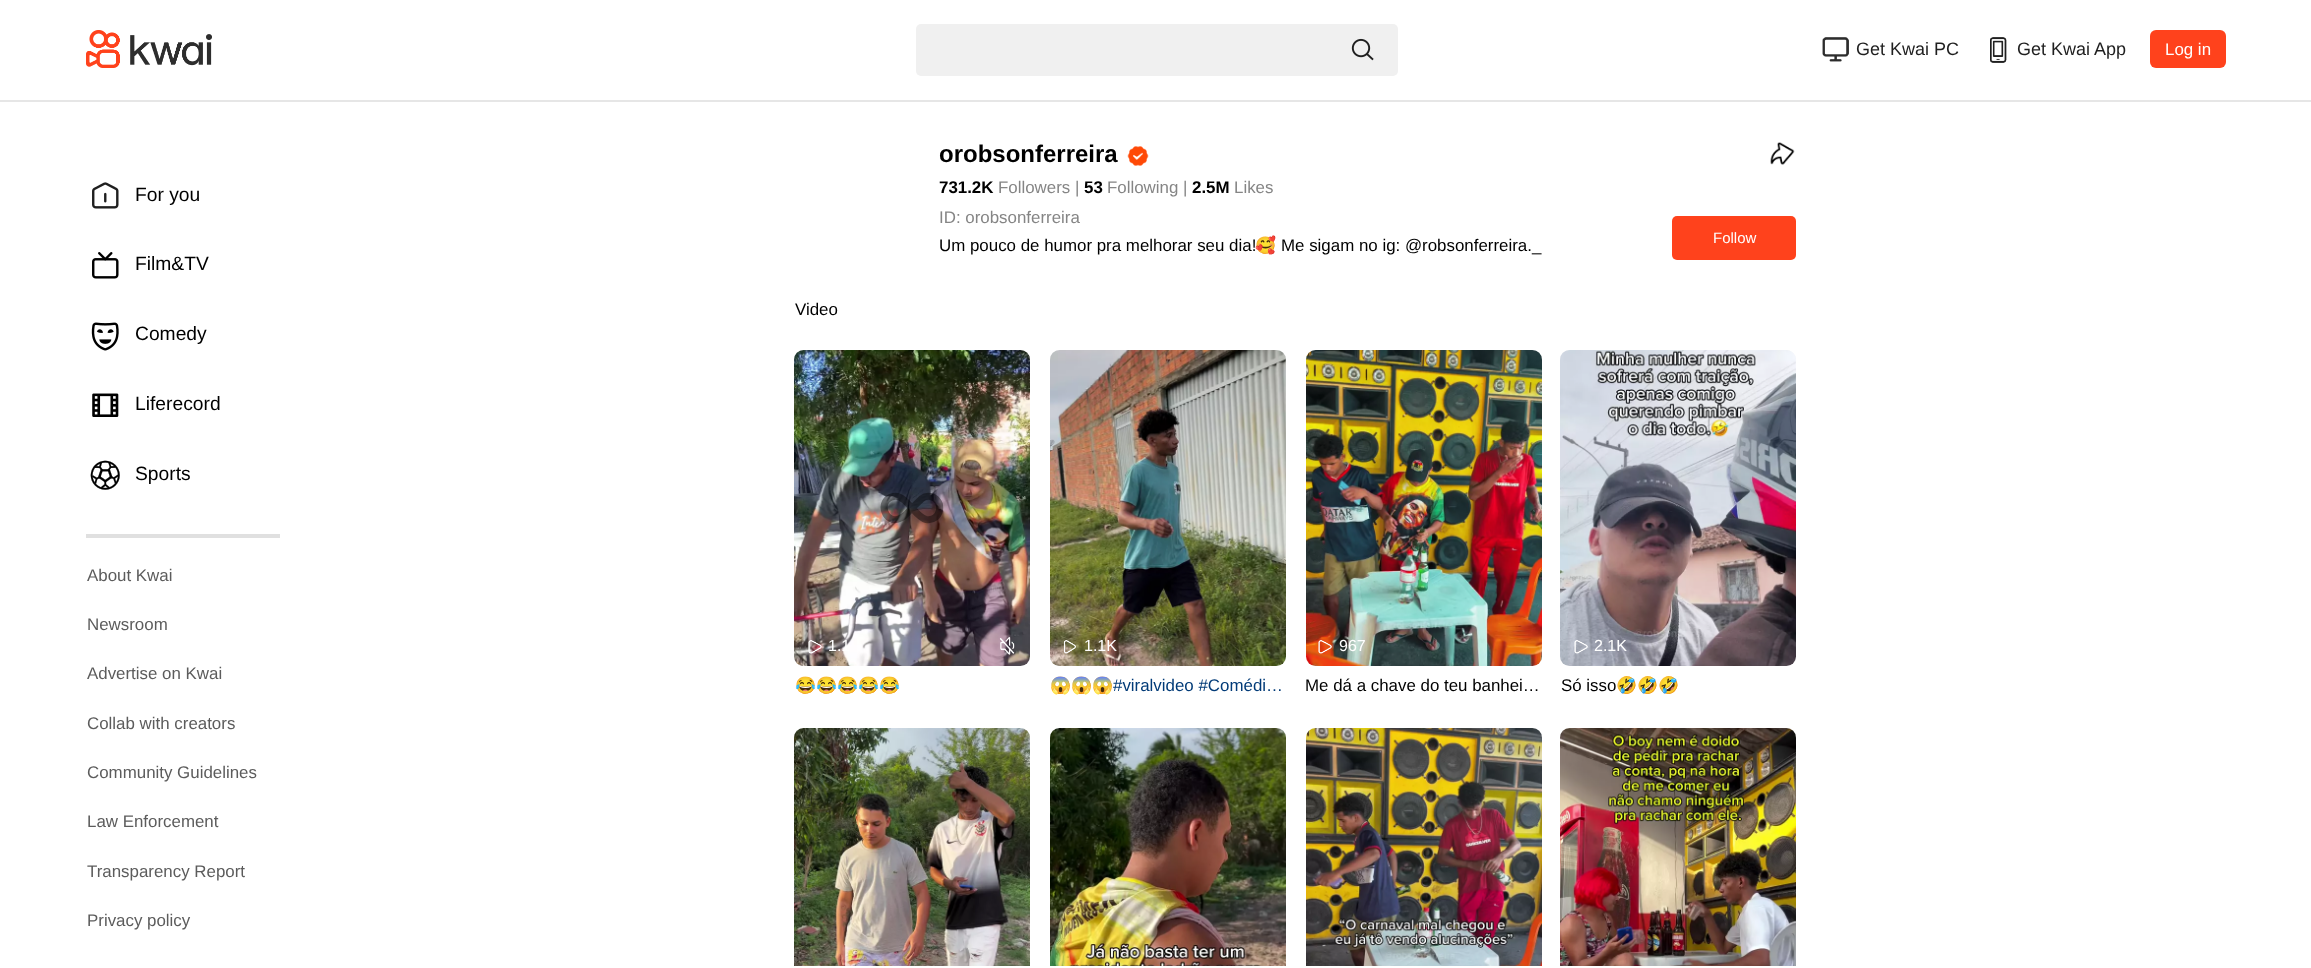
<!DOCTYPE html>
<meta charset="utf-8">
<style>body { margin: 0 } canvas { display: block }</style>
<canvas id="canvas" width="2311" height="968"></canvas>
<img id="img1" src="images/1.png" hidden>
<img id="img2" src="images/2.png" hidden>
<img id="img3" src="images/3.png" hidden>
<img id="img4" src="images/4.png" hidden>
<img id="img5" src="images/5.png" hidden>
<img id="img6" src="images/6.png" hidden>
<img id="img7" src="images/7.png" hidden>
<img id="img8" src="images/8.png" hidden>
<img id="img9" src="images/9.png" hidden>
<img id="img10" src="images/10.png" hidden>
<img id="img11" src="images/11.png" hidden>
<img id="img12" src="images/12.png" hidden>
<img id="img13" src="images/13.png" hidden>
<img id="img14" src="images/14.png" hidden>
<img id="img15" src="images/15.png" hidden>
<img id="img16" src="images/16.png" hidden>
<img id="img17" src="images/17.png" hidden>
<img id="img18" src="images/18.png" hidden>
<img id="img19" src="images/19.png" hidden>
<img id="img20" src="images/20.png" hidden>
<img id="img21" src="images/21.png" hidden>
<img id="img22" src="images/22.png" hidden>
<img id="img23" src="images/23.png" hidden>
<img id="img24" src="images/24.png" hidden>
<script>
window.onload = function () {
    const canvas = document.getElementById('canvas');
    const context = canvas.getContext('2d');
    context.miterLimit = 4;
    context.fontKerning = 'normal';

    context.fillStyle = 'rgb(255, 255, 255)';
    context.fillRect(0, 0, 2311, 968);
    context.fillStyle = 'rgb(230, 230, 230)';
    context.fillRect(0, 100, 2311, 2);
    context.drawImage(document.getElementById('img1'), 86, 30, 126, 38);
    context.fillStyle = 'rgb(240, 240, 240)';
    context.beginPath();
    context.roundRect(916, 24, 482, 52, 5);
    context.fill();
    context.drawImage(document.getElementById('img2'), 1351, 38, 23, 23);
    context.drawImage(document.getElementById('img3'), 1822, 37, 27, 25);
    context.drawImage(document.getElementById('img4'), 1990, 37, 17, 26);
    context.fillStyle = 'rgb(255, 66, 28)';
    context.beginPath();
    context.roundRect(2150, 30, 76, 38, 6);
    context.fill();
    context.drawImage(document.getElementById('img5'), 92, 182, 27, 27);
    context.drawImage(document.getElementById('img6'), 92, 252, 27, 27);
    context.drawImage(document.getElementById('img7'), 91, 322, 28, 29);
    context.drawImage(document.getElementById('img8'), 92, 393, 27, 24);
    context.drawImage(document.getElementById('img9'), 90, 460, 30, 30);
    context.fillStyle = 'rgb(224, 224, 224)';
    context.fillRect(86, 534, 194, 4);
    context.drawImage(document.getElementById('img10'), 1127, 146, 22, 20);
    context.drawImage(document.getElementById('img11'), 1770, 142, 25, 23);
    context.fillStyle = 'rgb(255, 66, 28)';
    context.beginPath();
    context.roundRect(1672, 216, 124, 44, 5);
    context.fill();
    context.fillStyle = 'rgb(242, 242, 242)';
    context.beginPath();
    context.roundRect(794, 350, 236, 316, 10);
    context.fill();
    context.drawImage(document.getElementById('img12'), 794, 350, 236, 316);
    context.beginPath();
    context.moveTo(912, 508);
    context.lineTo(922, 498.5);
    context.bezierCurveTo(924.5, 496.5, 927.5, 496, 930.5, 496.5);
    context.bezierCurveTo(945.5, 499.5, 941, 522.5, 926, 519.5);
    context.bezierCurveTo(915, 517, 906, 494, 893.5, 496.5);
    context.bezierCurveTo(876, 500, 885.5, 526.5, 901, 518);
    context.bezierCurveTo(905.5, 516, 908.5, 511.5, 912, 508);
    context.strokeStyle = 'rgba(0, 0, 0, 0.4)';
    context.lineWidth = 7;
    context.lineCap = 'round';
    context.stroke();
    context.drawImage(document.getElementById('img13'), 808, 640, 14, 14);
    context.drawImage(document.getElementById('img14'), 999, 636, 16, 19);
    context.beginPath();
    context.roundRect(1050, 350, 236, 316, 10);
    context.fill();
    context.drawImage(document.getElementById('img15'), 1050, 350, 236, 316);
    context.drawImage(document.getElementById('img16'), 1063, 640, 13, 14);
    context.beginPath();
    context.roundRect(1306, 350, 236, 316, 10);
    context.fill();
    context.drawImage(document.getElementById('img17'), 1306, 350, 236, 316);
    context.drawImage(document.getElementById('img18'), 1318, 640, 14, 14);
    context.beginPath();
    context.roundRect(1560, 350, 236, 316, 10);
    context.fill();
    context.drawImage(document.getElementById('img19'), 1560, 350, 236, 316);
    context.drawImage(document.getElementById('img20'), 1574, 640, 14, 14);
    context.drawImage(document.getElementById('img21'), 794, 728, 236, 238);
    context.drawImage(document.getElementById('img22'), 1050, 728, 236, 238);
    context.drawImage(document.getElementById('img23'), 1306, 728, 236, 238);
    context.drawImage(document.getElementById('img24'), 1560, 728, 236, 238);
    context.font = '18px Liberation Sans';
    context.fillStyle = 'rgb(31, 31, 31)';
    context.fillText('Get Kwai PC', 1856, 55);
    context.fillText('Get Kwai App', 2017, 55);
    context.font = '16.9px Liberation Sans';
    context.fillStyle = 'rgb(255, 255, 255)';
    context.fillText('Log in', 2165, 55);
    context.font = '19.25px Liberation Sans';
    context.fillStyle = 'rgb(0, 0, 0)';
    context.fillText('For you', 135, 201);
    context.fillText('Film&TV', 135, 270);
    context.fillText('Comedy', 135, 340);
    context.fillText('Liferecord', 135, 410);
    context.fillText('Sports', 135, 480);
    context.font = '16.9px Liberation Sans';
    context.fillStyle = 'rgb(92, 92, 92)';
    context.fillText('About Kwai', 87, 581);
    context.fillText('Newsroom', 87, 630);
    context.fillText('Advertise on Kwai', 87, 679);
    context.fillText('Collab with creators', 87, 729);
    context.fillText('Community Guidelines', 87, 778);
    context.fillText('Law Enforcement', 87, 827);
    context.fillText('Transparency Report', 87, 877);
    context.fillText('Privacy policy', 87, 926);
    context.font = 'bold 24px Liberation Sans';
    context.fillStyle = 'rgb(0, 0, 0)';
    context.fillText('orobsonferreira', 939, 162);
    context.font = 'bold 16.9px Liberation Sans';
    context.fillText('731.2K', 939, 193);
    context.font = '16.9px Liberation Sans';
    context.fillStyle = 'rgb(133, 133, 133)';
    context.fillText('Followers |', 998, 193);
    context.font = 'bold 16.9px Liberation Sans';
    context.fillStyle = 'rgb(0, 0, 0)';
    context.fillText('53', 1084, 193);
    context.font = '16.9px Liberation Sans';
    context.fillStyle = 'rgb(133, 133, 133)';
    context.fillText('Following |', 1107, 193);
    context.font = 'bold 16.9px Liberation Sans';
    context.fillStyle = 'rgb(0, 0, 0)';
    context.fillText('2.5M', 1192, 193);
    context.font = '16.9px Liberation Sans';
    context.fillStyle = 'rgb(133, 133, 133)';
    context.fillText('Likes', 1234, 193);
    context.fillText('ID: orobsonferreira', 939, 223);
    context.fillStyle = 'rgb(0, 0, 0)';
    context.fillText('Um pouco de humor pra melhorar seu dia!', 939, 251);
    context.font = '16.9px Noto Color Emoji';
    context.fillText('🥰', 1255, 251);
    context.font = '16.9px Liberation Sans';
    context.fillText('Me sigam no ig: @robsonferreira._', 1281, 251);
    context.font = '15px Liberation Sans';
    context.fillStyle = 'rgb(255, 255, 255)';
    context.fillText('Follow', 1713, 243);
    context.font = '16.9px Liberation Sans';
    context.fillStyle = 'rgb(0, 0, 0)';
    context.fillText('Video', 795, 315);
    context.font = '16px Liberation Sans';
    context.fillStyle = 'rgb(255, 255, 255)';
    context.fillText('1.1', 828, 651);
    context.save();
    context.beginPath();
    context.rect(794, 676, 236, 22);
    context.clip();
    context.font = '16.9px Noto Color Emoji';
    context.fillStyle = 'rgb(0, 0, 0)';
    context.fillText('😂😂😂😂😂', 795, 691);
    context.restore();
    context.fillText('1.1K', 1084, 651);
    context.save();
    context.beginPath();
    context.rect(1050, 676, 236, 22);
    context.clip();
    context.font = '16.9px Noto Color Emoji';
    context.fillStyle = 'rgb(0, 0, 0)';
    context.fillText('😱😱😱', 1050, 691);
    context.restore();
    context.font = '16.9px Liberation Sans';
    context.fillStyle = 'rgb(1, 58, 119)';
    context.fillText('#viralvideo #Comédi…', 1113, 691);
    context.font = '16px Liberation Sans';
    context.fillStyle = 'rgb(255, 255, 255)';
    context.fillText('967', 1339, 651);
    context.font = '16.9px Liberation Sans';
    context.fillStyle = 'rgb(0, 0, 0)';
    context.fillText('Me dá a chave do teu banhei…', 1305, 691);
    context.font = '16px Liberation Sans';
    context.fillStyle = 'rgb(255, 255, 255)';
    context.fillText('2.1K', 1594, 651);
    context.font = '16.9px Liberation Sans';
    context.fillStyle = 'rgb(0, 0, 0)';
    context.fillText('Só isso', 1561, 691);
    context.save();
    context.beginPath();
    context.rect(1560, 676, 236, 22);
    context.clip();
    context.font = '16.9px Noto Color Emoji';
    context.fillText('🤣🤣🤣', 1616, 691);
    context.restore();
};
</script>
